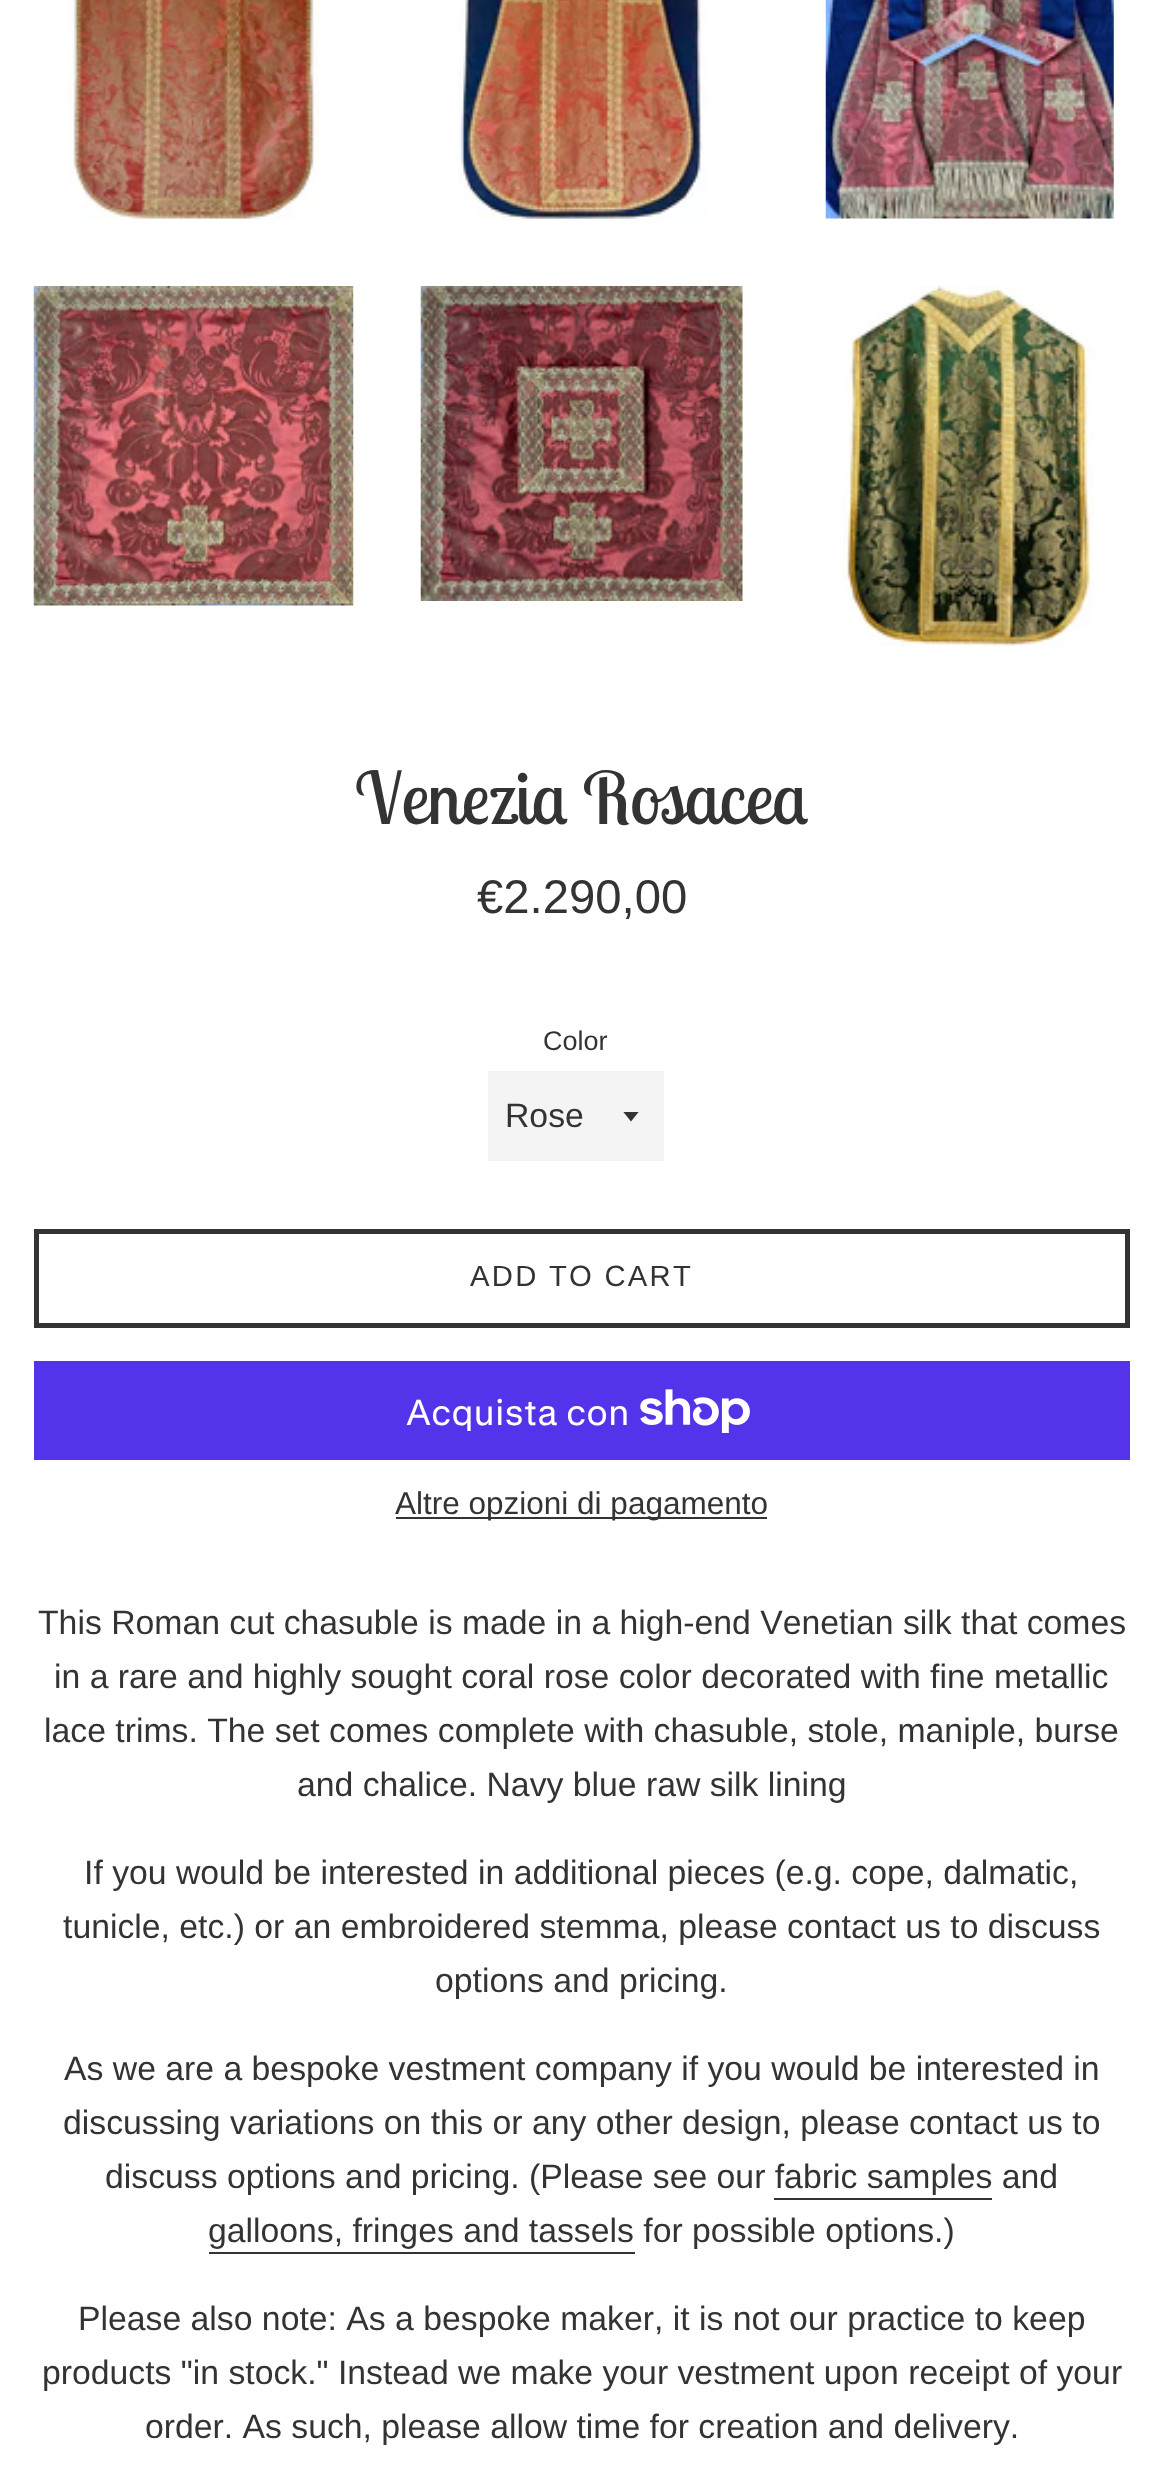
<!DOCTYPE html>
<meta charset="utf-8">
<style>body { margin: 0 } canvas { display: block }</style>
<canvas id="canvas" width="1162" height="2479"></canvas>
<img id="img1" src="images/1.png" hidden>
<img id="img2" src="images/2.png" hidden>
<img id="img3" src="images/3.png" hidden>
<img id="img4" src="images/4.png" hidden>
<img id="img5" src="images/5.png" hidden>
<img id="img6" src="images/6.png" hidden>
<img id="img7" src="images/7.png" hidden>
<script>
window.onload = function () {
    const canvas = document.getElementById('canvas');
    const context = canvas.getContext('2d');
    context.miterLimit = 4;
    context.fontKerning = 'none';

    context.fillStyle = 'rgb(255, 255, 255)';
    context.fillRect(0, 0, 1162, 2479);
    context.drawImage(document.getElementById('img1'), 68, 0, 251, 219);
    context.drawImage(document.getElementById('img2'), 459, 0, 248, 219);
    context.drawImage(document.getElementById('img3'), 825, 0, 289, 219);
    context.drawImage(document.getElementById('img4'), 33, 286, 321, 320);
    context.drawImage(document.getElementById('img5'), 420, 286, 323, 315);
    context.drawImage(document.getElementById('img6'), 842, 286, 252, 360);
    context.fillStyle = 'rgb(244, 244, 244)';
    context.fillRect(488, 1071, 176, 90);
    context.save();
    context.beginPath();
    context.rect(623, 1112, 18, 11);
    context.clip();
    context.fillStyle = 'rgb(51, 51, 51)';
    context.beginPath();
    context.moveTo(623, 1111.5);
    context.lineTo(631, 1121.5);
    context.lineTo(639, 1111.5);
    context.closePath();
    context.fill();
    context.restore();
    context.strokeStyle = 'rgb(51, 51, 51)';
    context.lineWidth = 5;
    context.strokeRect(36.5, 1231.5, 1091, 94);
    context.fillStyle = 'rgb(84, 51, 235)';
    context.fillRect(34, 1361, 1096, 99);
    context.drawImage(document.getElementById('img7'), 640, 1389, 110, 44);
    context.fillStyle = 'rgb(51, 51, 51)';
    context.fillRect(396, 1517, 371, 2);
    context.fillRect(774, 2198, 218, 2);
    context.fillRect(209, 2252, 426, 2);
    context.font = '72px Lobster Two';
    context.fillText('Venezia Rosacea', 355, 824);
    context.font = '47.25px Liberation Sans';
    context.fillText('€2.290,00', 477, 913);
    context.font = '27px Liberation Sans';
    context.fillText('Color', 543, 1050);
    context.font = '33.75px Liberation Sans';
    context.fillText('Rose', 505, 1127);
    context.letterSpacing = '2.25px';
    context.font = '29.25px Liberation Sans';
    context.fillText('ADD TO CART', 470, 1286);
    context.letterSpacing = '0px';
    context.font = '36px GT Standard';
    context.fillStyle = 'rgb(255, 255, 255)';
    context.fillText('Acquista con', 406, 1425);
    context.font = '31.5px Liberation Sans';
    context.fillStyle = 'rgb(51, 51, 51)';
    context.fillText('Altre opzioni di pagamento', 395, 1514);
    context.font = '33.75px Liberation Sans';
    context.fillText('This Roman cut chasuble is made in a high-end Venetian silk that comes', 38, 1634);
    context.fillText('in a rare and highly sought coral rose color decorated with fine metallic', 54, 1688);
    context.fillText('lace trims. The set comes complete with chasuble, stole, maniple, burse', 44, 1742);
    context.fillText('and chalice. Navy blue raw silk lining', 297, 1796);
    context.fillText('If you would be interested in additional pieces (e.g. cope, dalmatic,', 84, 1884);
    context.fillText('tunicle, etc.) or an embroidered stemma, please contact us to discuss', 63, 1938);
    context.fillText('options and pricing.', 435, 1992);
    context.fillText('As we are a bespoke vestment company if you would be interested in', 64, 2080);
    context.fillText('discussing variations on this or any other design, please contact us to', 63, 2134);
    context.fillText('discuss options and pricing. (Please see our fabric samples and', 105, 2188);
    context.fillText('galloons, fringes and tassels for possible options.)', 208, 2242);
    context.fillText('Please also note: As a bespoke maker, it is not our practice to keep', 78, 2330);
    context.fillText('products "in stock." Instead we make your vestment upon receipt of your', 42, 2384);
    context.fillText('order. As such, please allow time for creation and delivery.', 145, 2438);
};
</script>
